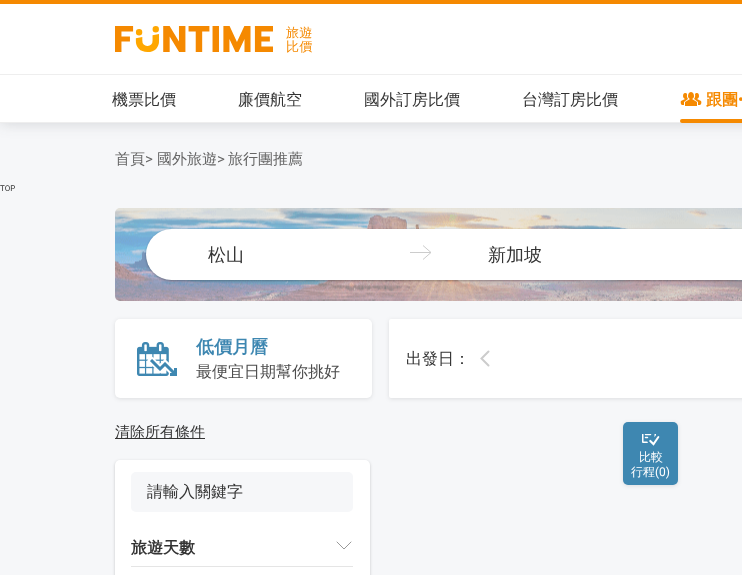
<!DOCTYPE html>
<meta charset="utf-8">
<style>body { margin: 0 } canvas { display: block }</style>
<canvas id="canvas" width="742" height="575"></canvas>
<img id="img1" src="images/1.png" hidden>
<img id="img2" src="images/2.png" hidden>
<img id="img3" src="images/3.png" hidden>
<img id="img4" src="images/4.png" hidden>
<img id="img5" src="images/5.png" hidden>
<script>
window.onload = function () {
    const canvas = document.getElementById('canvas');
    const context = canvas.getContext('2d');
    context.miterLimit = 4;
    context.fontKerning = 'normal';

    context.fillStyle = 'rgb(246, 247, 249)';
    context.fillRect(0, 0, 742, 575);
    context.fillStyle = 'rgba(43, 48, 54, 0.18)';
    context.filter = 'blur(7.5px)';
    context.beginPath();
    context.rect(0, 0, 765, 123);
    context.fill();
    context.filter = 'none';
    context.fillStyle = 'rgb(245, 137, 0)';
    context.fillRect(0, 0, 742, 4);
    context.fillStyle = 'rgb(255, 255, 255)';
    context.fillRect(0, 4, 742, 118);
    context.fillStyle = 'rgb(238, 238, 238)';
    context.fillRect(0, 122, 682, 1);
    context.fillRect(0, 74, 742, 1);
    context.drawImage(document.getElementById('img1'), 115, 26, 197, 27);
    context.drawImage(document.getElementById('img2'), 680, 92, 22, 14);
    context.fillStyle = 'rgb(245, 137, 0)';
    context.beginPath();
    context.roundRect(680, 119, 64, 4, 2);
    context.fill();
    context.fillStyle = 'rgba(0, 0, 0, 0.1)';
    context.filter = 'blur(2px)';
    context.beginPath();
    context.roundRect(623, 423, 55, 63, 5);
    context.fill();
    context.filter = 'none';
    context.fillStyle = 'rgb(62, 135, 177)';
    context.beginPath();
    context.roundRect(623, 422, 55, 63, 5);
    context.fill();
    context.drawImage(document.getElementById('img3'), 642, 434, 18, 12);
    context.drawImage(document.getElementById('img4'), 115, 208, 627, 93);
    context.fillStyle = 'rgba(0, 0, 0, 0.3)';
    context.filter = 'blur(1px)';
    context.beginPath();
    context.roundRect(146, 230, 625, 51, 25.5);
    context.fill();
    context.filter = 'none';
    context.fillStyle = 'rgb(255, 255, 255)';
    context.fillRect(410, 229, 332, 51);
    context.beginPath();
    context.moveTo(423, 245.5);
    context.lineTo(431, 252.5);
    context.lineTo(423, 259.5);
    context.strokeStyle = 'rgb(204, 204, 204)';
    context.stroke();
    context.fillStyle = 'rgb(204, 204, 204)';
    context.fillRect(410, 252, 21, 1);
    context.fillStyle = 'rgb(255, 255, 255)';
    context.beginPath();
    context.roundRect(146, 229, 264, 51, [25.5, 0, 0, 25.5]);
    context.fill();
    context.fillStyle = 'rgba(0, 0, 0, 0.1)';
    context.filter = 'blur(2px)';
    context.beginPath();
    context.roundRect(115, 320, 257, 79, 5);
    context.fill();
    context.filter = 'none';
    context.fillStyle = 'rgb(255, 255, 255)';
    context.beginPath();
    context.roundRect(115, 319, 257, 79, 5);
    context.fill();
    context.drawImage(document.getElementById('img5'), 137, 342, 40, 34);
    context.fillStyle = 'rgba(0, 0, 0, 0.1)';
    context.filter = 'blur(2px)';
    context.beginPath();
    context.roundRect(389, 320, 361, 79, 2);
    context.fill();
    context.filter = 'none';
    context.fillStyle = 'rgb(255, 255, 255)';
    context.beginPath();
    context.roundRect(389, 319, 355, 79, 2);
    context.fill();
    context.beginPath();
    context.moveTo(488.5, 365.5);
    context.lineTo(481.5, 358.5);
    context.lineTo(488.5, 351.5);
    context.lineWidth = 2;
    context.lineCap = 'round';
    context.stroke();
    context.fillStyle = 'rgb(51, 51, 51)';
    context.fillRect(115, 438, 90, 1);
    context.fillStyle = 'rgba(0, 0, 0, 0.19)';
    context.filter = 'blur(1.5px)';
    context.beginPath();
    context.roundRect(115, 461, 255, 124, 5);
    context.fill();
    context.filter = 'none';
    context.fillStyle = 'rgb(255, 255, 255)';
    context.beginPath();
    context.roundRect(115, 460, 255, 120, 5);
    context.fill();
    context.fillStyle = 'rgb(246, 247, 249)';
    context.beginPath();
    context.roundRect(131, 472, 222, 40, 5);
    context.fill();
    context.beginPath();
    context.moveTo(337, 542);
    context.lineTo(344, 549);
    context.lineTo(351, 542);
    context.strokeStyle = 'rgb(153, 153, 153)';
    context.lineWidth = 1;
    context.stroke();
    context.fillStyle = 'rgb(229, 229, 229)';
    context.fillRect(131, 566, 222, 1);
    context.font = '500 16px WenQuanYi Zen Hei';
    context.fillStyle = 'rgb(51, 51, 51)';
    context.fillText('機票比價', 112, 105);
    context.fillText('廉價航空', 238, 105);
    context.fillText('國外訂房比價', 364, 105);
    context.fillText('台灣訂房比價', 522, 105);
    context.font = 'bold 16px WenQuanYi Zen Hei';
    context.fillStyle = 'rgb(245, 137, 0)';
    context.fillText('跟團', 706, 105);
    context.font = 'bold 16px Roboto';
    context.fillText('•', 738, 105);
    context.font = '500 15px WenQuanYi Zen Hei';
    context.fillStyle = 'rgb(102, 102, 102)';
    context.fillText('首頁', 115, 164);
    context.font = '15px Roboto';
    context.fillText('>', 145, 164);
    context.font = '500 15px WenQuanYi Zen Hei';
    context.fillText('國外旅遊', 157, 164);
    context.font = '15px Roboto';
    context.fillText('>', 217, 164);
    context.font = '500 15px WenQuanYi Zen Hei';
    context.fillText('旅行團推薦', 228, 164);
    context.font = '8px Roboto';
    context.fillStyle = 'rgb(51, 51, 51)';
    context.fillText('TOP', 0, 191);
    context.font = '500 12px WenQuanYi Zen Hei';
    context.fillStyle = 'rgb(255, 255, 255)';
    context.fillText('比較', 639, 461);
    context.fillText('行程', 631, 476);
    context.font = '12px Roboto';
    context.fillText('(0)', 655, 476);
    context.font = '500 18px WenQuanYi Zen Hei';
    context.fillStyle = 'rgb(51, 51, 51)';
    context.fillText('松山', 208, 261);
    context.fillText('新加坡', 488, 261);
    context.font = 'bold 18px WenQuanYi Zen Hei';
    context.fillStyle = 'rgb(62, 135, 177)';
    context.fillText('低價月曆', 196, 353);
    context.font = '500 16px WenQuanYi Zen Hei';
    context.fillStyle = 'rgb(77, 77, 77)';
    context.fillText('最便宜日期幫你挑好', 196, 377);
    context.fillStyle = 'rgb(51, 51, 51)';
    context.fillText('出發日：', 406, 364);
    context.font = '500 15px WenQuanYi Zen Hei';
    context.fillText('清除所有條件', 115, 437);
    context.font = '500 16px WenQuanYi Zen Hei';
    context.fillText('請輸入關鍵字', 147, 497);
    context.font = 'bold 16px WenQuanYi Zen Hei';
    context.fillText('旅遊天數', 131, 553);
};
</script>
